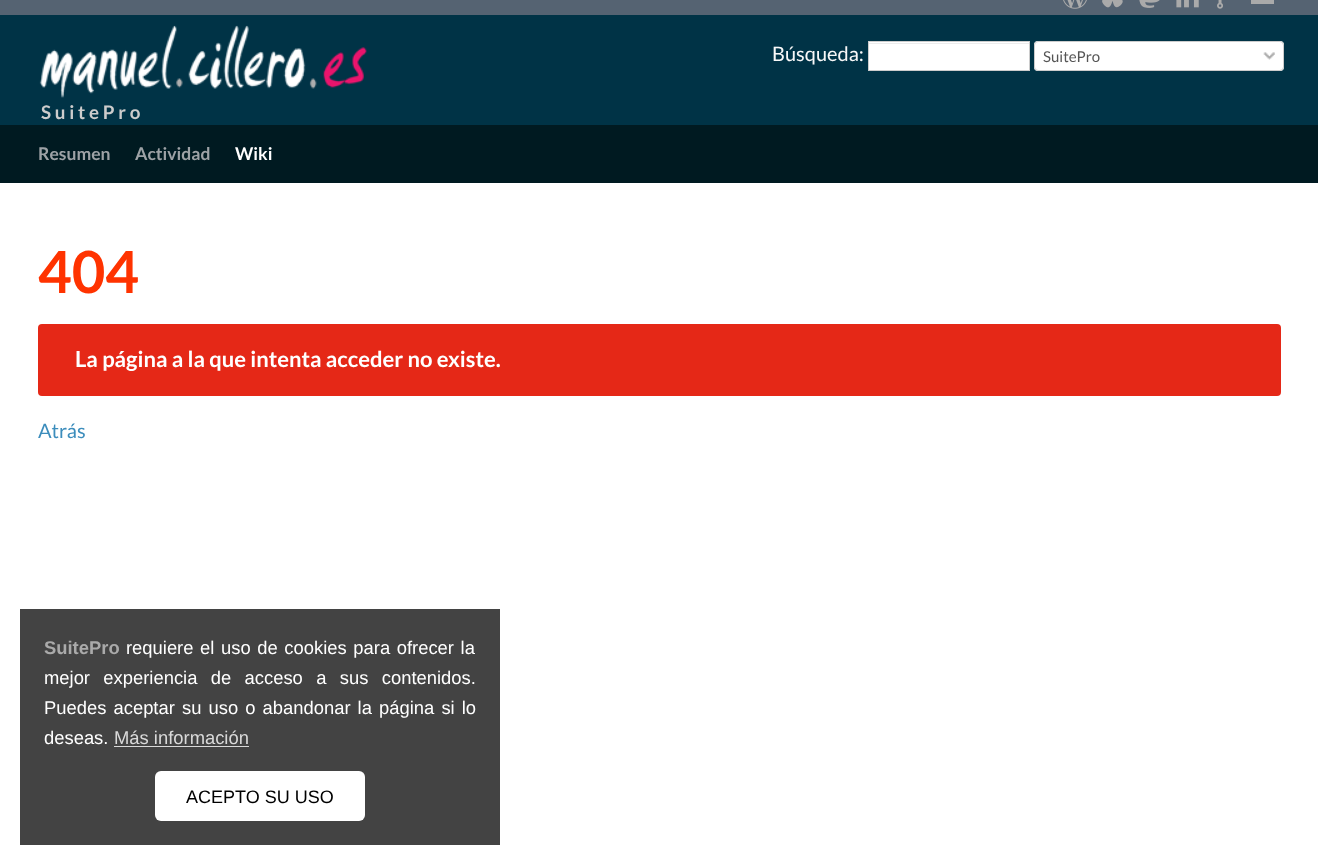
<!DOCTYPE html>
<meta charset="utf-8">
<style>body { margin: 0 } canvas { display: block }</style>
<canvas id="canvas" width="1318" height="865"></canvas>
<img id="img1" src="images/1.png" hidden>
<img id="img2" src="images/2.png" hidden>
<img id="img3" src="images/3.png" hidden>
<img id="img4" src="images/4.png" hidden>
<img id="img5" src="images/5.png" hidden>
<img id="img6" src="images/6.png" hidden>
<img id="img7" src="images/7.png" hidden>
<script>
window.onload = function () {
    const canvas = document.getElementById('canvas');
    const context = canvas.getContext('2d');
    context.miterLimit = 4;
    context.fontKerning = 'normal';

    context.fillStyle = 'rgb(85, 99, 114)';
    context.fillRect(0, 0, 1318, 865);
    context.drawImage(document.getElementById('img1'), 1063, 0, 24, 9);
    context.drawImage(document.getElementById('img2'), 1102, 0, 21, 8);
    context.drawImage(document.getElementById('img3'), 1139, 0, 21, 8);
    context.drawImage(document.getElementById('img4'), 1176, 0, 23, 8);
    context.drawImage(document.getElementById('img5'), 1217, 0, 6, 9);
    context.fillStyle = 'rgb(170, 170, 170)';
    context.fillRect(1251, 0, 23, 4);
    context.fillStyle = 'rgb(0, 51, 70)';
    context.fillRect(0, 15, 1318, 110);
    context.drawImage(document.getElementById('img6'), 39, 25, 328, 73);
    context.fillStyle = 'rgb(255, 255, 255)';
    context.fillRect(869, 42, 160, 28);
    context.fillStyle = 'rgb(236, 236, 236)';
    context.fillRect(869, 43, 160, 1);
    context.strokeStyle = 'rgb(204, 204, 204)';
    context.strokeRect(868.5, 41.5, 161, 29);
    context.fillStyle = 'rgb(255, 255, 255)';
    context.beginPath();
    context.roundRect(1034, 41, 250, 30, 4);
    context.fill();
    context.drawImage(document.getElementById('img7'), 1263, 52, 12, 8);
    context.beginPath();
    context.roundRect(1034.5, 41.5, 249, 29, 3.5);
    context.stroke();
    context.fillStyle = 'rgb(0, 26, 33)';
    context.fillRect(0, 125, 1318, 58);
    context.fillStyle = 'rgb(255, 255, 255)';
    context.fillRect(0, 183, 1318, 682);
    context.fillStyle = 'rgb(229, 40, 23)';
    context.beginPath();
    context.roundRect(38, 324, 1243, 72, 4);
    context.fill();
    context.fillStyle = 'rgb(67, 67, 67)';
    context.fillRect(20, 609, 480, 236);
    context.fillStyle = 'rgb(217, 217, 217)';
    context.fillRect(114, 746, 135, 1);
    context.fillStyle = 'rgb(255, 255, 255)';
    context.beginPath();
    context.roundRect(155, 771, 210, 50, 6);
    context.fill();
    context.font = '20px Lato';
    context.fillStyle = 'rgb(248, 248, 248)';
    context.fillText('Búsqueda:', 772, 61);
    context.font = '15px Lato';
    context.fillStyle = 'rgb(85, 85, 85)';
    context.fillText('SuitePro', 1043, 62);
    context.letterSpacing = '3.75px';
    context.font = 'bold 18.75px Lato';
    context.fillStyle = 'rgb(204, 204, 204)';
    context.fillText('SuitePro', 41, 119);
    context.letterSpacing = '0px';
    context.font = 'bold 17.5px Lato';
    context.fillStyle = 'rgb(157, 162, 166)';
    context.fillText('Resumen', 38, 160);
    context.fillText('Actividad', 135, 160);
    context.fillStyle = 'rgb(255, 255, 255)';
    context.fillText('Wiki', 235, 160);
    context.font = 'bold 58px Lato';
    context.fillStyle = 'rgb(255, 51, 0)';
    context.fillText('404', 38, 293);
    context.font = 'bold 22px Lato';
    context.fillStyle = 'rgb(255, 255, 255)';
    context.fillText('La página a la que intenta acceder no existe.', 75, 367);
    context.font = '20px Lato';
    context.fillStyle = 'rgb(60, 141, 188)';
    context.fillText('Atrás', 38, 438);
    context.font = 'bold 18.4px Liberation Sans';
    context.fillStyle = 'rgb(170, 170, 170)';
    context.fillText('SuitePro', 44, 654);
    context.wordSpacing = '1.5px';
    context.font = '18.4px Liberation Sans';
    context.fillStyle = 'rgb(255, 255, 255)';
    context.fillText('requiere el uso de cookies para ofrecer la', 126, 654);
    context.wordSpacing = '8.25px';
    context.fillText('mejor experiencia de acceso a sus contenidos.', 44, 684);
    context.wordSpacing = '2px';
    context.fillText('Puedes aceptar su uso o abandonar la página si lo', 44, 714);
    context.wordSpacing = '0px';
    context.fillText('deseas.', 44, 744);
    context.fillStyle = 'rgb(217, 217, 217)';
    context.fillText('Más información', 114, 744);
    context.font = '18px Liberation Sans';
    context.fillStyle = 'rgb(0, 0, 0)';
    context.fillText('ACEPTO SU USO', 186, 803);
};
</script>
